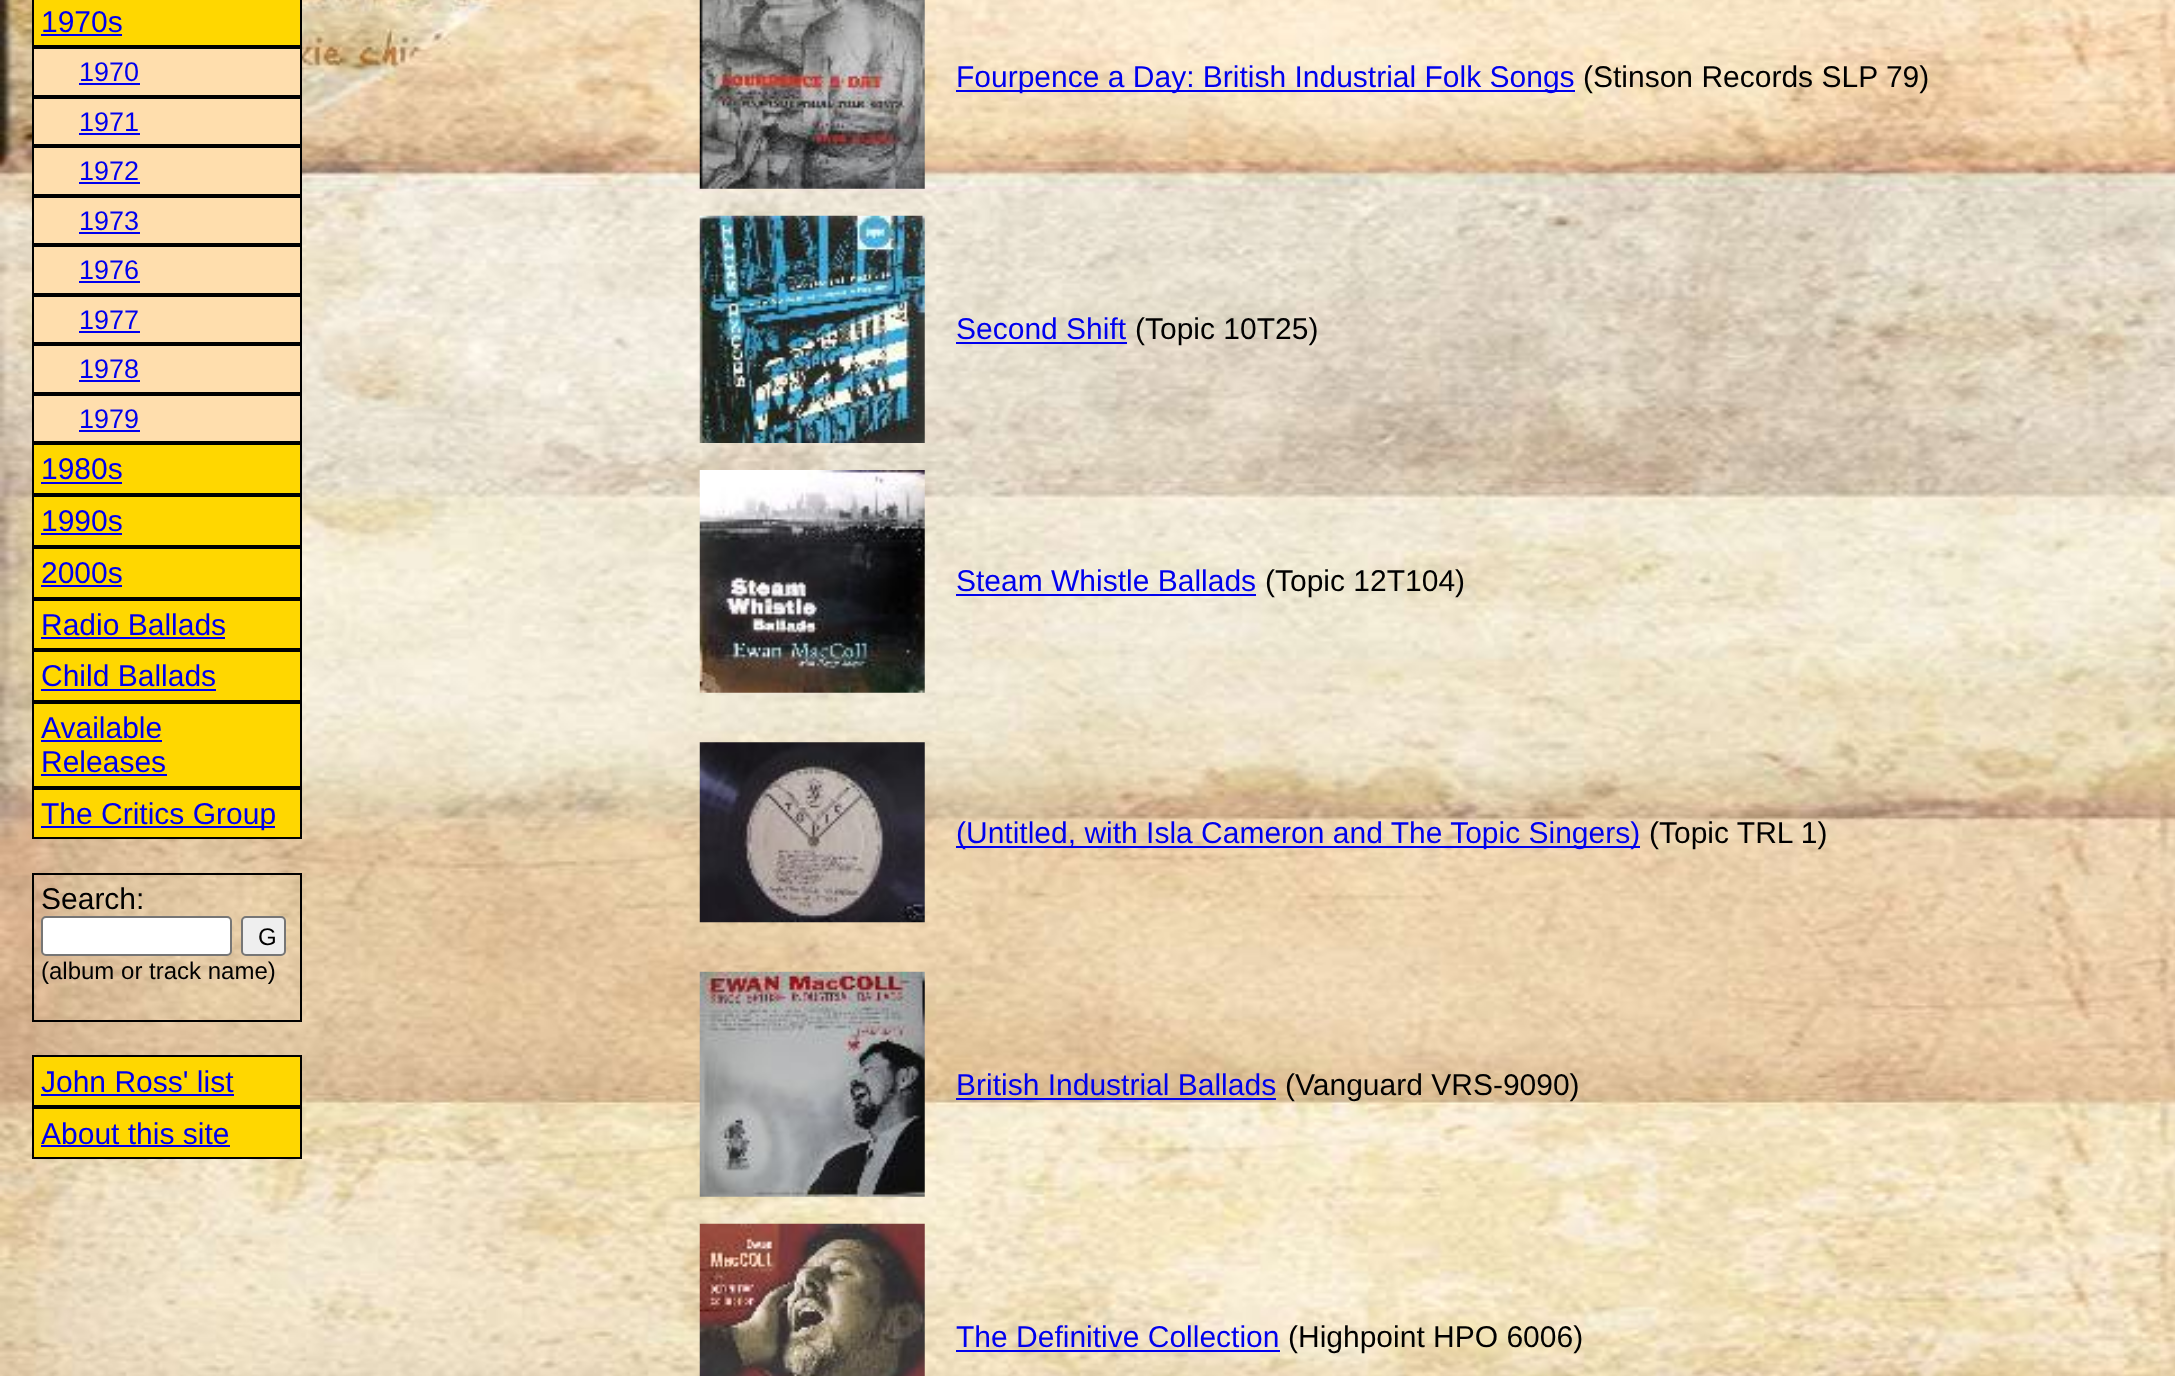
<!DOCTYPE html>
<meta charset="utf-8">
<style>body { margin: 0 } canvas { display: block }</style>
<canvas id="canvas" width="2175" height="1376"></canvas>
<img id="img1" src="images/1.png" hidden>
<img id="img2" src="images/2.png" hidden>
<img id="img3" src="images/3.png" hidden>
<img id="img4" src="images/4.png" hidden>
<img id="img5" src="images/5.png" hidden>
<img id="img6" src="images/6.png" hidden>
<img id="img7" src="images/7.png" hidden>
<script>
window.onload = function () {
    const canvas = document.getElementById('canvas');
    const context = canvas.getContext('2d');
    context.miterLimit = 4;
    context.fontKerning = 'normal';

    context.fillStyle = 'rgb(255, 255, 255)';
    context.fillRect(0, 0, 2175, 1376);
    context.drawImage(document.getElementById('img1'), 0, 0, 2175, 1376);
    context.fillStyle = 'rgb(255, 215, 0)';
    context.beginPath();
    context.rect(33, -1, 268, 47);
    context.fill();
    context.strokeStyle = 'rgb(0, 0, 0)';
    context.lineWidth = 2;
    context.stroke();
    context.fillStyle = 'rgb(0, 0, 238)';
    context.fillRect(41, 34, 81, 2);
    context.fillStyle = 'rgb(255, 222, 173)';
    context.beginPath();
    context.rect(33, 48, 268, 48);
    context.fill();
    context.stroke();
    context.fillStyle = 'rgb(0, 0, 238)';
    context.fillRect(79, 83, 61, 2);
    context.fillStyle = 'rgb(255, 222, 173)';
    context.beginPath();
    context.rect(33, 98, 268, 47);
    context.fill();
    context.stroke();
    context.fillStyle = 'rgb(0, 0, 238)';
    context.fillRect(79, 133, 61, 2);
    context.fillStyle = 'rgb(255, 222, 173)';
    context.beginPath();
    context.rect(33, 147, 268, 48);
    context.fill();
    context.stroke();
    context.fillStyle = 'rgb(0, 0, 238)';
    context.fillRect(79, 182, 61, 2);
    context.fillStyle = 'rgb(255, 222, 173)';
    context.beginPath();
    context.rect(33, 197, 268, 47);
    context.fill();
    context.stroke();
    context.fillStyle = 'rgb(0, 0, 238)';
    context.fillRect(79, 232, 61, 2);
    context.fillStyle = 'rgb(255, 222, 173)';
    context.beginPath();
    context.rect(33, 246, 268, 48);
    context.fill();
    context.stroke();
    context.fillStyle = 'rgb(0, 0, 238)';
    context.fillRect(79, 281, 61, 2);
    context.fillStyle = 'rgb(255, 222, 173)';
    context.beginPath();
    context.rect(33, 296, 268, 47);
    context.fill();
    context.stroke();
    context.fillStyle = 'rgb(0, 0, 238)';
    context.fillRect(79, 331, 61, 2);
    context.fillStyle = 'rgb(255, 222, 173)';
    context.beginPath();
    context.rect(33, 345, 268, 48);
    context.fill();
    context.stroke();
    context.fillStyle = 'rgb(0, 0, 238)';
    context.fillRect(79, 380, 61, 2);
    context.fillStyle = 'rgb(255, 222, 173)';
    context.beginPath();
    context.rect(33, 395, 268, 47);
    context.fill();
    context.stroke();
    context.fillStyle = 'rgb(0, 0, 238)';
    context.fillRect(79, 430, 61, 2);
    context.fillStyle = 'rgb(255, 215, 0)';
    context.beginPath();
    context.rect(33, 444, 268, 50);
    context.fill();
    context.stroke();
    context.fillStyle = 'rgb(0, 0, 238)';
    context.fillRect(41, 482, 81, 2);
    context.fillStyle = 'rgb(255, 215, 0)';
    context.beginPath();
    context.rect(33, 496, 268, 50);
    context.fill();
    context.stroke();
    context.fillStyle = 'rgb(0, 0, 238)';
    context.fillRect(41, 533, 81, 2);
    context.fillStyle = 'rgb(255, 215, 0)';
    context.beginPath();
    context.rect(33, 548, 268, 50);
    context.fill();
    context.stroke();
    context.fillStyle = 'rgb(0, 0, 238)';
    context.fillRect(41, 585, 81, 2);
    context.fillStyle = 'rgb(255, 215, 0)';
    context.beginPath();
    context.rect(33, 600, 268, 49);
    context.fill();
    context.stroke();
    context.fillStyle = 'rgb(0, 0, 238)';
    context.fillRect(41, 637, 184, 2);
    context.fillStyle = 'rgb(255, 215, 0)';
    context.beginPath();
    context.rect(33, 651, 268, 50);
    context.fill();
    context.stroke();
    context.fillStyle = 'rgb(0, 0, 238)';
    context.fillRect(41, 689, 175, 2);
    context.fillStyle = 'rgb(255, 215, 0)';
    context.beginPath();
    context.rect(33, 703, 268, 84);
    context.fill();
    context.stroke();
    context.fillStyle = 'rgb(0, 0, 238)';
    context.fillRect(41, 740, 121, 2);
    context.fillRect(41, 774, 126, 2);
    context.fillStyle = 'rgb(255, 215, 0)';
    context.beginPath();
    context.rect(33, 789, 268, 49);
    context.fill();
    context.stroke();
    context.fillStyle = 'rgb(0, 0, 238)';
    context.fillRect(41, 826, 234, 2);
    context.strokeRect(33, 874, 268, 147);
    context.fillStyle = 'rgb(255, 255, 255)';
    context.beginPath();
    context.roundRect(42, 917, 189, 38, 4);
    context.fill();
    context.strokeStyle = 'rgb(118, 118, 118)';
    context.stroke();
    context.fillStyle = 'rgb(239, 239, 239)';
    context.beginPath();
    context.roundRect(242, 917, 43, 38, 4);
    context.fill();
    context.stroke();
    context.fillStyle = 'rgb(255, 215, 0)';
    context.beginPath();
    context.rect(33, 1056, 268, 50);
    context.fill();
    context.strokeStyle = 'rgb(0, 0, 0)';
    context.stroke();
    context.fillStyle = 'rgb(0, 0, 238)';
    context.fillRect(41, 1094, 193, 2);
    context.fillStyle = 'rgb(255, 215, 0)';
    context.beginPath();
    context.rect(33, 1108, 268, 50);
    context.fill();
    context.stroke();
    context.fillStyle = 'rgb(0, 0, 238)';
    context.fillRect(41, 1145, 189, 2);
    context.drawImage(document.getElementById('img2'), 699, 0, 226, 189);
    context.fillRect(956, 90, 619, 2);
    context.drawImage(document.getElementById('img3'), 699, 215, 226, 228);
    context.fillRect(956, 342, 171, 2);
    context.drawImage(document.getElementById('img4'), 699, 470, 226, 223);
    context.fillRect(956, 594, 300, 2);
    context.drawImage(document.getElementById('img5'), 699, 742, 226, 181);
    context.fillRect(956, 846, 684, 2);
    context.drawImage(document.getElementById('img6'), 699, 971, 226, 226);
    context.fillRect(956, 1098, 320, 2);
    context.drawImage(document.getElementById('img7'), 699, 1223, 226, 153);
    context.fillRect(956, 1350, 324, 2);
    context.font = '30px Liberation Sans';
    context.fillText('1970s', 41, 32);
    context.font = '27px Liberation Sans';
    context.fillText('1970', 79, 81);
    context.fillText('1971', 79, 131);
    context.fillText('1972', 79, 180);
    context.fillText('1973', 79, 230);
    context.fillText('1976', 79, 279);
    context.fillText('1977', 79, 329);
    context.fillText('1978', 79, 378);
    context.fillText('1979', 79, 428);
    context.font = '30px Liberation Sans';
    context.fillText('1980s', 41, 479);
    context.fillText('1990s', 41, 531);
    context.fillText('2000s', 41, 583);
    context.fillText('Radio Ballads', 41, 635);
    context.fillText('Child Ballads', 41, 686);
    context.fillText('Available', 41, 738);
    context.fillText('Releases', 41, 772);
    context.fillText('The Critics Group', 41, 824);
    context.fillStyle = 'rgb(0, 0, 0)';
    context.fillText('Search:', 41, 909);
    context.font = '24px Liberation Sans';
    context.fillText('G', 258, 945);
    context.fillText('(album or track name)', 41, 979);
    context.font = '30px Liberation Sans';
    context.fillStyle = 'rgb(0, 0, 238)';
    context.fillText('John Ross\' list', 41, 1092);
    context.fillText('About this site', 41, 1144);
    context.fillText('Fourpence a Day: British Industrial Folk Songs', 956, 87);
    context.fillStyle = 'rgb(0, 0, 0)';
    context.fillText('(Stinson Records SLP 79)', 1583, 87);
    context.fillStyle = 'rgb(0, 0, 238)';
    context.fillText('Second Shift', 956, 339);
    context.fillStyle = 'rgb(0, 0, 0)';
    context.fillText('(Topic 10T25)', 1135, 339);
    context.fillStyle = 'rgb(0, 0, 238)';
    context.fillText('Steam Whistle Ballads', 956, 591);
    context.fillStyle = 'rgb(0, 0, 0)';
    context.fillText('(Topic 12T104)', 1265, 591);
    context.fillStyle = 'rgb(0, 0, 238)';
    context.fillText('(Untitled, with Isla Cameron and The Topic Singers)', 956, 843);
    context.fillStyle = 'rgb(0, 0, 0)';
    context.fillText('(Topic TRL 1)', 1649, 843);
    context.fillStyle = 'rgb(0, 0, 238)';
    context.fillText('British Industrial Ballads', 956, 1095);
    context.fillStyle = 'rgb(0, 0, 0)';
    context.fillText('(Vanguard VRS-9090)', 1285, 1095);
    context.fillStyle = 'rgb(0, 0, 238)';
    context.fillText('The Definitive Collection', 956, 1347);
    context.fillStyle = 'rgb(0, 0, 0)';
    context.fillText('(Highpoint HPO 6006)', 1288, 1347);
};
</script>
